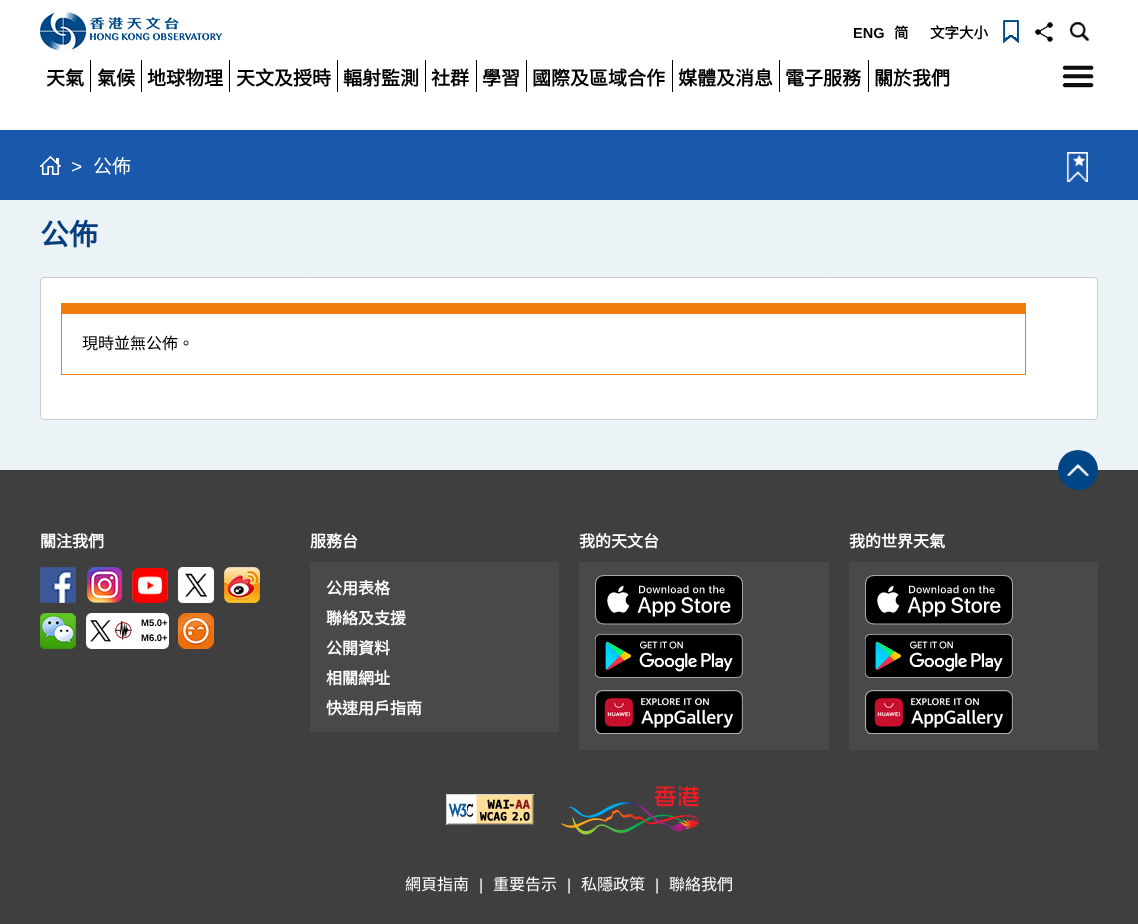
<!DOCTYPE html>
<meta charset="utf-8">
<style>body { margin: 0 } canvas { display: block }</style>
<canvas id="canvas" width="1138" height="924"></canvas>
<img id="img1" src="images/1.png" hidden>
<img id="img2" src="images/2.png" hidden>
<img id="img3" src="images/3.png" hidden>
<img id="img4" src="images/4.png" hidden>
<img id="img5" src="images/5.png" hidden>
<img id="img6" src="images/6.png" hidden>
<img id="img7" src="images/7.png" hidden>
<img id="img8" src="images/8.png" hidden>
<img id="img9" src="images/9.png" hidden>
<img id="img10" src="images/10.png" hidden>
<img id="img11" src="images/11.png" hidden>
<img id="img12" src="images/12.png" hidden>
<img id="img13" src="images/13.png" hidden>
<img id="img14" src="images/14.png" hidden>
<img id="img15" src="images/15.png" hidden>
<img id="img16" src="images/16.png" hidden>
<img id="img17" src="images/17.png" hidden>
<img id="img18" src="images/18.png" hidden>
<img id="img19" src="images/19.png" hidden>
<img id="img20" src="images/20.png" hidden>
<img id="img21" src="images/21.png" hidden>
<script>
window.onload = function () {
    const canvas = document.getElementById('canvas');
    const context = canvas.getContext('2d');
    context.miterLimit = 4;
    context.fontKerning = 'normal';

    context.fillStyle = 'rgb(255, 255, 255)';
    context.fillRect(0, 0, 1138, 924);
    context.drawImage(document.getElementById('img1'), 40, 11, 182, 40);
    context.drawImage(document.getElementById('img2'), 1003, 20, 16, 23);
    context.drawImage(document.getElementById('img3'), 1035, 22, 18, 20);
    context.drawImage(document.getElementById('img4'), 1069, 22, 21, 20);
    context.fillStyle = 'rgb(0, 0, 0)';
    context.fillRect(90, 60, 1, 32);
    context.fillRect(141, 60, 1, 32);
    context.fillRect(229, 60, 1, 32);
    context.fillRect(337, 60, 1, 32);
    context.fillRect(425, 60, 1, 32);
    context.fillRect(476, 60, 1, 32);
    context.fillRect(526, 60, 1, 32);
    context.fillRect(672, 60, 1, 32);
    context.fillRect(779, 60, 1, 32);
    context.fillRect(868, 60, 1, 32);
    context.drawImage(document.getElementById('img5'), 1062, 65, 32, 23);
    context.fillStyle = 'rgb(235, 243, 246)';
    context.fillRect(0, 200, 1138, 270);
    context.fillStyle = 'rgb(26, 88, 171)';
    context.fillRect(0, 130, 1138, 70);
    context.drawImage(document.getElementById('img6'), 40, 156, 21, 19);
    context.drawImage(document.getElementById('img7'), 1066, 152, 22, 30);
    context.fillStyle = 'rgb(255, 255, 255)';
    context.beginPath();
    context.roundRect(40.5, 277.5, 1057, 142, 3.5);
    context.fill();
    context.strokeStyle = 'rgb(204, 204, 204)';
    context.stroke();
    context.fillStyle = 'rgb(241, 125, 14)';
    context.fillRect(61, 303, 965, 72);
    context.fillStyle = 'rgb(255, 255, 255)';
    context.fillRect(62, 314, 963, 60);
    context.fillStyle = 'rgb(63, 63, 63)';
    context.fillRect(0, 470, 1138, 454);
    context.fillStyle = 'rgb(0, 69, 134)';
    context.beginPath();
    context.arc(1078, 470, 20, 0, 2 * Math.PI);
    context.fill();
    context.drawImage(document.getElementById('img8'), 1067, 464, 22, 12);
    context.drawImage(document.getElementById('img9'), 40, 567, 36, 36);
    context.drawImage(document.getElementById('img10'), 87, 567, 35, 36);
    context.drawImage(document.getElementById('img11'), 132, 568, 36, 35);
    context.drawImage(document.getElementById('img12'), 178, 567, 36, 36);
    context.drawImage(document.getElementById('img13'), 224, 567, 36, 36);
    context.drawImage(document.getElementById('img14'), 40, 613, 36, 36);
    context.drawImage(document.getElementById('img15'), 86, 613, 83, 36);
    context.drawImage(document.getElementById('img16'), 178, 613, 36, 36);
    context.fillStyle = 'rgb(73, 73, 73)';
    context.fillRect(310, 562, 249, 170);
    context.fillRect(579, 562, 250, 188);
    context.drawImage(document.getElementById('img17'), 595, 575, 148, 50);
    context.drawImage(document.getElementById('img18'), 595, 633, 148, 45);
    context.drawImage(document.getElementById('img19'), 595, 690, 148, 44);
    context.fillRect(849, 562, 249, 188);
    context.drawImage(document.getElementById('img17'), 865, 575, 148, 50);
    context.drawImage(document.getElementById('img18'), 865, 633, 148, 45);
    context.drawImage(document.getElementById('img19'), 865, 690, 148, 44);
    context.drawImage(document.getElementById('img20'), 446, 794, 88, 31);
    context.drawImage(document.getElementById('img21'), 561, 786, 138, 49);
    context.font = 'bold 14.5px Liberation Sans';
    context.fillStyle = 'rgb(0, 0, 0)';
    context.fillText('ENG', 853, 38);
    context.font = 'bold 14.5px Noto Sans CJK SC';
    context.fillText('简', 894, 38);
    context.font = 'bold 14.5px Noto Sans CJK HK';
    context.fillText('文字大小', 930, 38);
    context.font = 'bold 19px Noto Sans CJK HK';
    context.fillText('天氣', 46, 85);
    context.fillText('氣候', 97, 85);
    context.fillText('地球物理', 147, 85);
    context.fillText('天文及授時', 236, 85);
    context.fillText('輻射監測', 343, 85);
    context.fillText('社群', 431, 85);
    context.fillText('學習', 482, 85);
    context.fillText('國際及區域合作', 532, 85);
    context.fillText('媒體及消息', 678, 85);
    context.fillText('電子服務', 785, 85);
    context.fillText('關於我們', 874, 85);
    context.font = '19px Liberation Sans';
    context.fillStyle = 'rgb(255, 255, 255)';
    context.fillText('>', 71, 173);
    context.font = '19px Noto Sans CJK HK';
    context.fillText('公佈', 93, 173);
    context.font = 'bold 29px Noto Sans CJK HK';
    context.fillStyle = 'rgb(7, 62, 127)';
    context.fillText('公佈', 40, 245);
    context.font = '16px Noto Sans CJK HK';
    context.fillStyle = 'rgb(0, 0, 0)';
    context.fillText('現時並無公佈。', 82, 349);
    context.font = 'bold 16px Noto Sans CJK HK';
    context.fillStyle = 'rgb(255, 255, 255)';
    context.fillText('關注我們', 40, 547);
    context.font = 'bold 9.5px Liberation Sans';
    context.fillStyle = 'rgb(0, 0, 0)';
    context.fillText('M5.0+', 141, 626);
    context.fillText('M6.0+', 141, 641);
    context.font = 'bold 16px Noto Sans CJK HK';
    context.fillStyle = 'rgb(255, 255, 255)';
    context.fillText('服務台', 310, 547);
    context.fillText('公用表格', 326, 594);
    context.fillText('聯絡及支援', 326, 624);
    context.fillText('公開資料', 326, 654);
    context.fillText('相關網址', 326, 684);
    context.fillText('快速用戶指南', 326, 714);
    context.fillText('我的天文台', 579, 547);
    context.fillText('我的世界天氣', 849, 547);
    context.font = '16px Noto Sans CJK HK';
    context.fillText('網頁指南', 405, 890);
    context.font = '16px Liberation Sans';
    context.fillText('|', 479, 890);
    context.font = '16px Noto Sans CJK HK';
    context.fillText('重要告示', 493, 890);
    context.font = '16px Liberation Sans';
    context.fillText('|', 567, 890);
    context.font = '16px Noto Sans CJK HK';
    context.fillText('私隱政策', 581, 890);
    context.font = '16px Liberation Sans';
    context.fillText('|', 655, 890);
    context.font = '16px Noto Sans CJK HK';
    context.fillText('聯絡我們', 669, 890);
};
</script>
